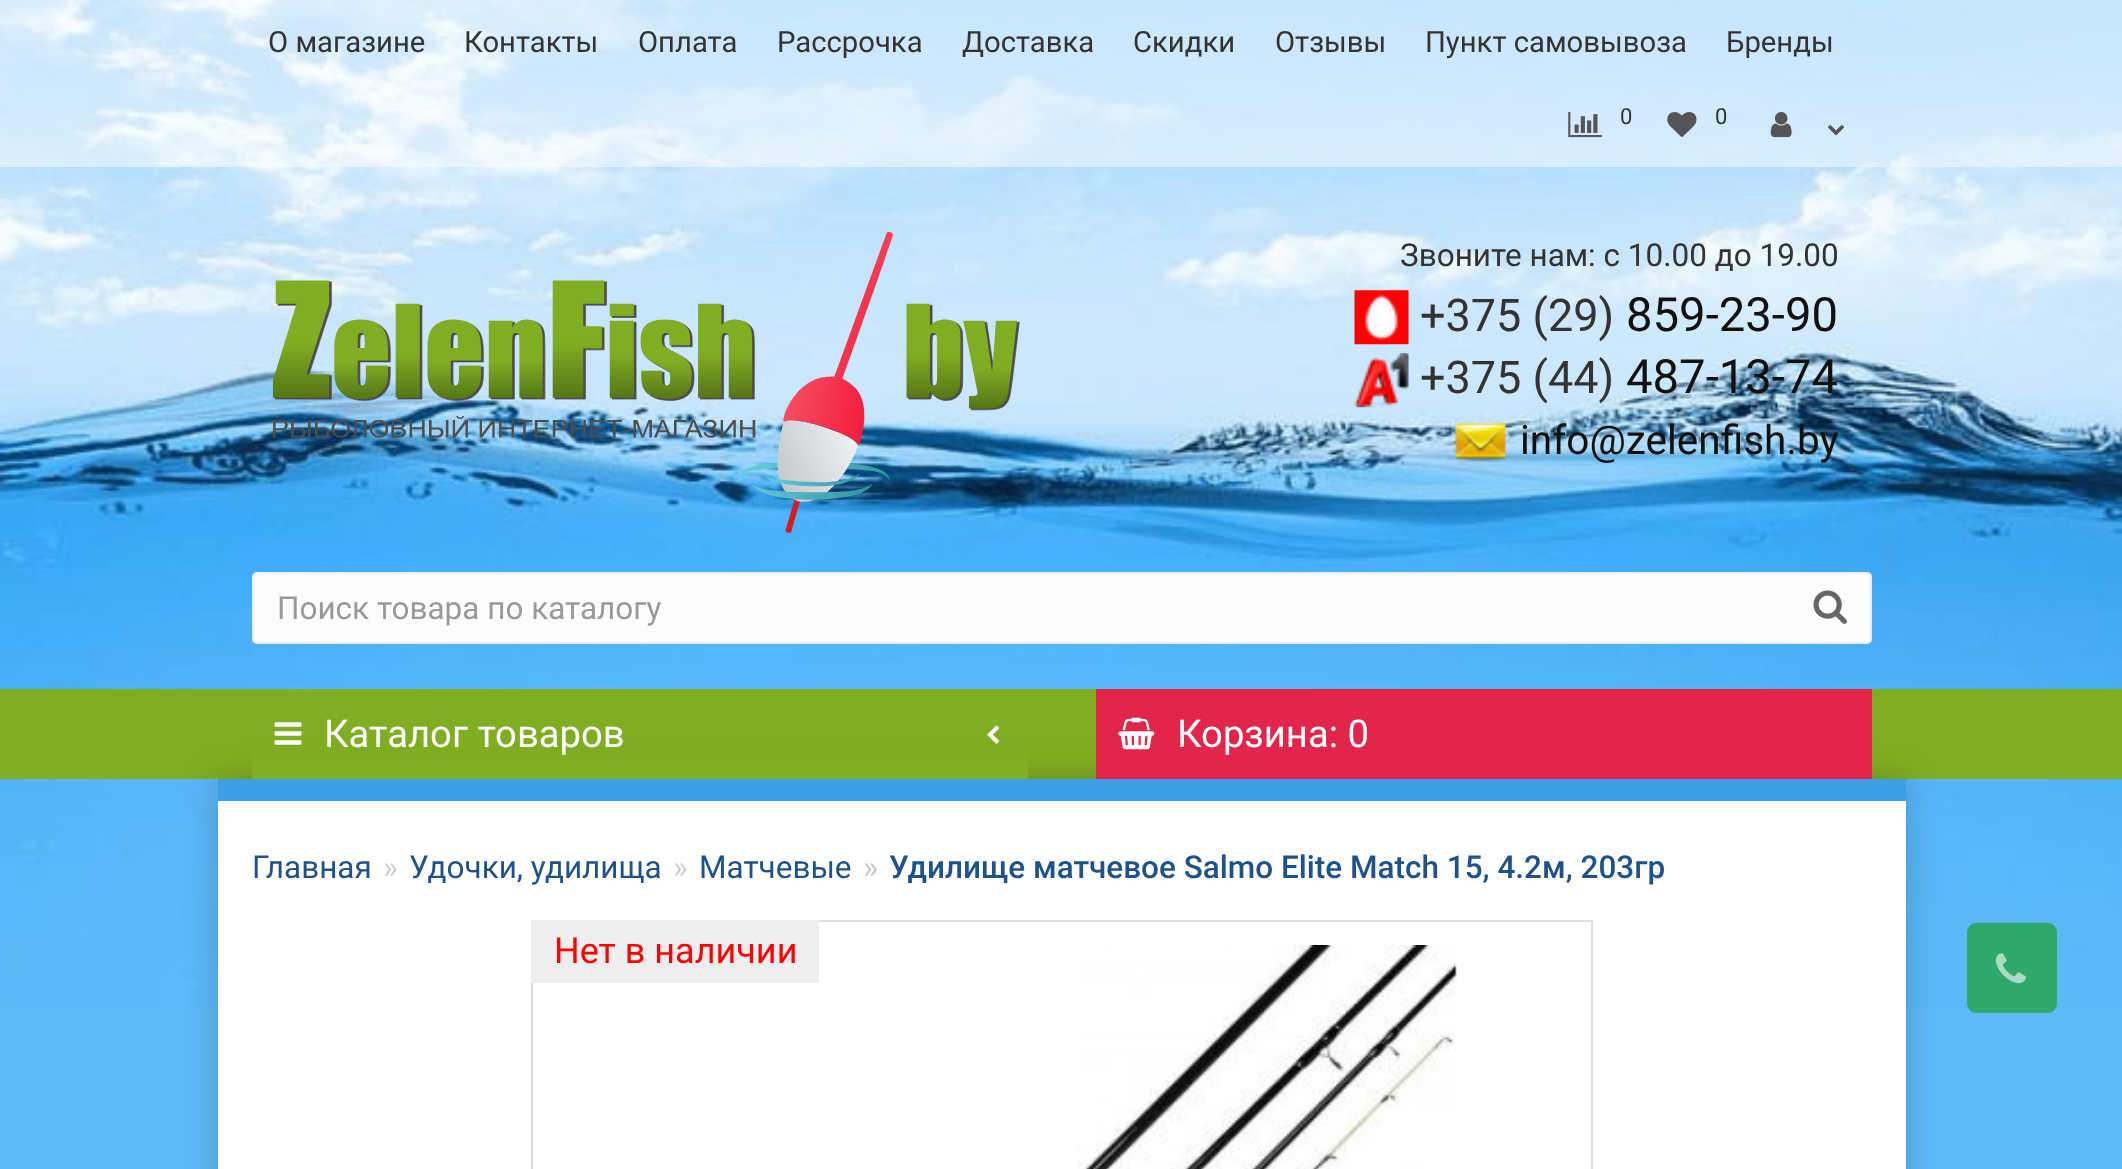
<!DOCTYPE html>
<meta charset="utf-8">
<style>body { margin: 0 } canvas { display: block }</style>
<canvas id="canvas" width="2122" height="1169"></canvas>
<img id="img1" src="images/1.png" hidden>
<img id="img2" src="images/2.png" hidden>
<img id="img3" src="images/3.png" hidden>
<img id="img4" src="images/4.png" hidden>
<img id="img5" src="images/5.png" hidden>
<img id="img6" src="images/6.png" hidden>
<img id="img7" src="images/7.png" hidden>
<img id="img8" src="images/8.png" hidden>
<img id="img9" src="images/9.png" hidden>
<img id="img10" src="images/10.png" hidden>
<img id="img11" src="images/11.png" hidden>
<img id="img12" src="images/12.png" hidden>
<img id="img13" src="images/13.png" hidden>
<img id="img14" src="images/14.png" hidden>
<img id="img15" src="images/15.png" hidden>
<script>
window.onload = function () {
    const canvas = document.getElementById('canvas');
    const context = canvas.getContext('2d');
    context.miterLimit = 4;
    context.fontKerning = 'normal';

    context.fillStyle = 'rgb(94, 187, 248)';
    context.fillRect(0, 0, 2122, 1169);
    context.drawImage(document.getElementById('img1'), 0, 0, 2122, 1008);
    context.fillStyle = 'rgba(255, 255, 255, 0.45)';
    context.fillRect(0, 0, 2122, 167);
    context.drawImage(document.getElementById('img2'), 1568, 112, 34, 26);
    context.drawImage(document.getElementById('img3'), 1667, 112, 30, 26);
    context.drawImage(document.getElementById('img4'), 1770, 112, 22, 26);
    context.drawImage(document.getElementById('img5'), 1828, 125, 16, 11);
    context.drawImage(document.getElementById('img6'), 272, 232, 748, 301);
    context.drawImage(document.getElementById('img7'), 1354, 290, 55, 55);
    context.drawImage(document.getElementById('img8'), 1354, 353, 55, 55);
    context.drawImage(document.getElementById('img9'), 1455, 422, 51, 40);
    context.fillStyle = 'rgb(252, 252, 252)';
    context.beginPath();
    context.roundRect(253, 573, 1618, 70, 4);
    context.fill();
    context.strokeStyle = 'rgb(237, 237, 237)';
    context.lineWidth = 2;
    context.stroke();
    context.fillRect(254, 574, 2, 67);
    context.drawImage(document.getElementById('img10'), 1813, 590, 34, 34);
    context.fillStyle = 'rgb(128, 174, 34)';
    context.fillRect(0, 689, 2122, 90);
    context.fillStyle = 'rgba(0, 0, 0, 0.2)';
    context.filter = 'blur(17px)';
    context.beginPath();
    context.rect(218, 779, 1688, 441);
    context.fill();
    context.filter = 'none';
    context.fillStyle = 'rgb(128, 174, 34)';
    context.fillRect(252, 754, 776, 25);
    context.drawImage(document.getElementById('img11'), 274, 722, 28, 23);
    context.drawImage(document.getElementById('img12'), 987, 725, 12, 19);
    context.fillStyle = 'rgb(226, 37, 75)';
    context.fillRect(1096, 689, 776, 90);
    context.drawImage(document.getElementById('img13'), 1118, 717, 37, 33);
    context.fillStyle = 'rgb(255, 255, 255)';
    context.fillRect(218, 801, 1688, 368);
    context.fillStyle = 'rgb(60, 160, 230)';
    context.fillRect(218, 779, 1688, 22);
    context.strokeStyle = 'rgb(223, 223, 223)';
    context.strokeRect(532, 921, 1060, 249);
    context.drawImage(document.getElementById('img14'), 1077, 945, 380, 224);
    context.fillStyle = 'rgb(238, 238, 238)';
    context.fillRect(531, 920, 288, 63);
    context.fillStyle = 'rgba(17, 157, 14, 0.6)';
    context.beginPath();
    context.roundRect(1967, 923, 90, 90, 9);
    context.fill();
    context.drawImage(document.getElementById('img15'), 1995, 953, 31, 31);
    context.font = '29.25px Roboto';
    context.fillStyle = 'rgb(51, 51, 51)';
    context.fillText('О магазине', 268, 52);
    context.fillText('Контакты', 464, 52);
    context.fillText('Оплата', 638, 52);
    context.fillText('Рассрочка', 777, 52);
    context.fillText('Доставка', 962, 52);
    context.fillText('Скидки', 1133, 52);
    context.fillText('Отзывы', 1275, 52);
    context.fillText('Пункт самовывоза', 1425, 52);
    context.fillText('Бренды', 1726, 52);
    context.font = '22px Roboto';
    context.fillText('0', 1620, 124);
    context.fillText('0', 1715, 124);
    context.font = '31.5px Roboto';
    context.fillText('Звоните нам: с 10.00 до 19.00', 1400, 266);
    context.font = '45px Roboto';
    context.fillText('+375 (29)', 1420, 331);
    context.font = '47.25px Roboto';
    context.fillStyle = 'rgb(17, 17, 17)';
    context.fillText('859-23-90', 1626, 331);
    context.font = '45px Roboto';
    context.fillStyle = 'rgb(51, 51, 51)';
    context.fillText('+375 (44)', 1420, 393);
    context.font = '47.25px Roboto';
    context.fillStyle = 'rgb(17, 17, 17)';
    context.fillText('487-13-74', 1626, 393);
    context.font = '40.5px Roboto';
    context.fillText('info@zelenfish.by', 1520, 454);
    context.font = '31.5px Roboto';
    context.fillStyle = 'rgb(153, 153, 153)';
    context.fillText('Поиск товара по каталогу', 277, 619);
    context.font = '38.25px Roboto';
    context.fillStyle = 'rgb(255, 255, 255)';
    context.fillText('Каталог товаров', 324, 747);
    context.fillText('Корзина: 0', 1177, 747);
    context.font = '31.5px Roboto';
    context.fillStyle = 'rgb(31, 82, 138)';
    context.fillText('Главная', 252, 878);
    context.fillStyle = 'rgb(204, 204, 204)';
    context.fillText('»', 383, 878);
    context.fillStyle = 'rgb(31, 82, 138)';
    context.fillText('Удочки, удилища', 409, 878);
    context.fillStyle = 'rgb(204, 204, 204)';
    context.fillText('»', 673, 878);
    context.fillStyle = 'rgb(31, 82, 138)';
    context.fillText('Матчевые', 699, 878);
    context.font = '500 31.5px Roboto';
    context.fillStyle = 'rgb(204, 204, 204)';
    context.fillText('»', 863, 878);
    context.fillStyle = 'rgb(31, 82, 138)';
    context.fillText('Удилище матчевое Salmo Elite Match 15, 4.2м, 203гр', 889, 878);
    context.font = '36px Roboto';
    context.fillStyle = 'rgb(255, 0, 0)';
    context.fillText('Нет в наличии', 554, 963);
};
</script>
